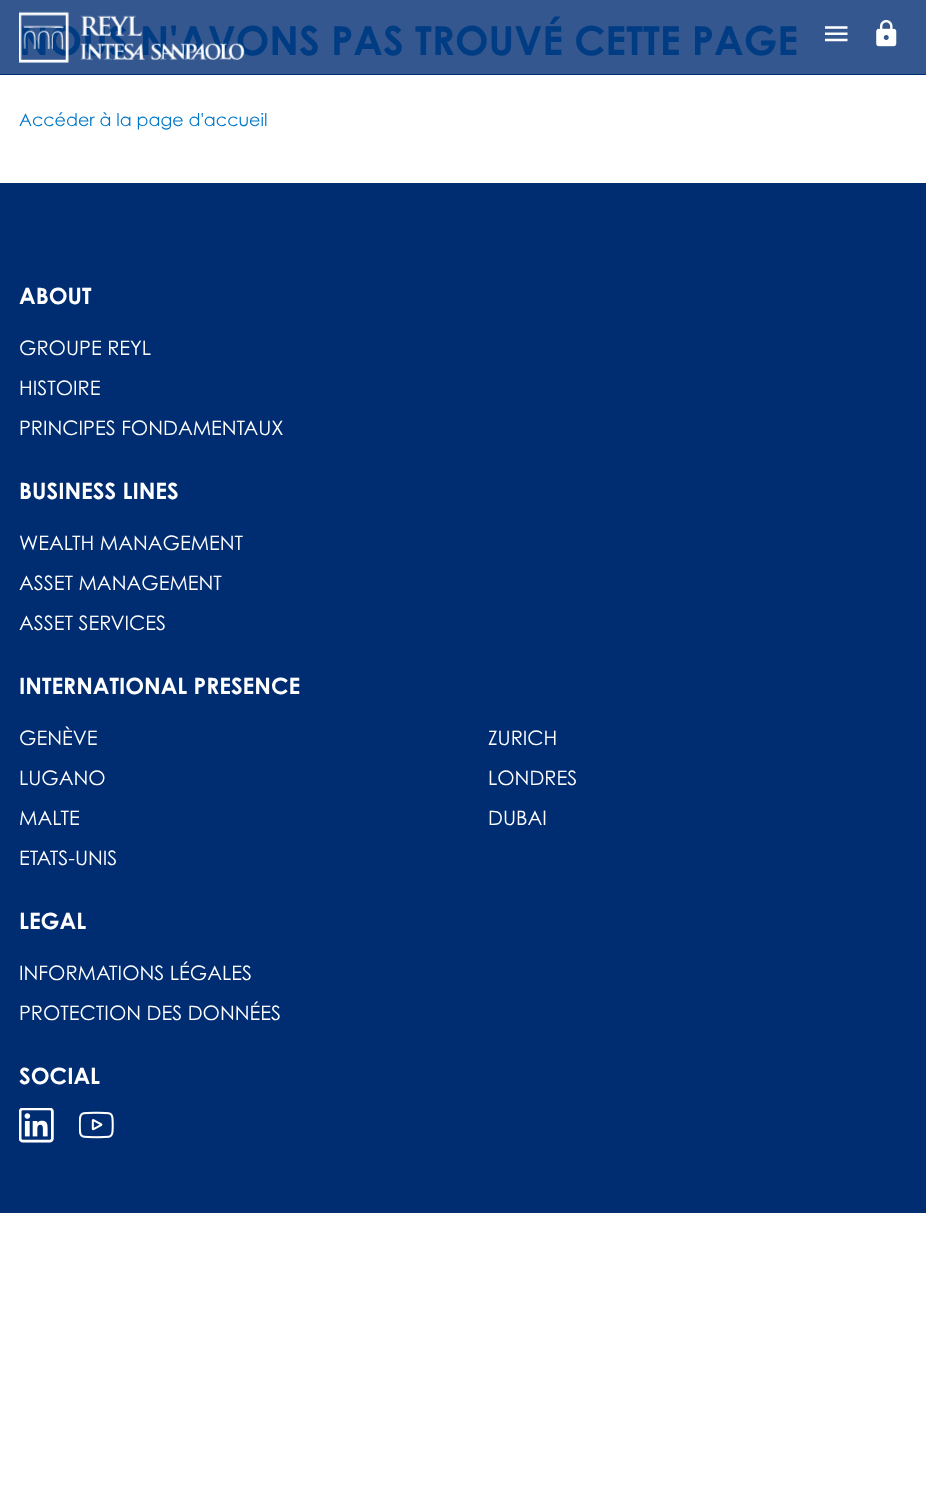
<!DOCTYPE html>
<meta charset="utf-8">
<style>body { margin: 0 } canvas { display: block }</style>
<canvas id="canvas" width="926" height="1501"></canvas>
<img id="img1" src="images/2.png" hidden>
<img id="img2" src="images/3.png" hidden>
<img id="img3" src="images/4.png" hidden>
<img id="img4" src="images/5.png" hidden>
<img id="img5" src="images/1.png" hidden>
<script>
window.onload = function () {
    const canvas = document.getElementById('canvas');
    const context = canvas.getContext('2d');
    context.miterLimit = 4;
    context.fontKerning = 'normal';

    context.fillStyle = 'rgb(255, 255, 255)';
    context.fillRect(0, 0, 926, 1501);
    context.fillStyle = 'rgb(51, 87, 142)';
    context.fillRect(0, 0, 926, 74);
    context.fillStyle = 'rgb(0, 45, 114)';
    context.fillRect(0, 74, 926, 1);
    context.drawImage(document.getElementById('img1'), 825, 26, 23, 16);
    context.drawImage(document.getElementById('img2'), 876, 20, 21, 27);
    context.fillRect(0, 183, 926, 1030);
    context.drawImage(document.getElementById('img3'), 19, 1108, 35, 35);
    context.drawImage(document.getElementById('img4'), 79, 1111, 35, 28);
    context.font = 'bold 40px Century Gothic';
    context.fillStyle = 'rgb(0, 60, 131)';
    context.fillText('NOUS N\'AVONS PAS TROUVÉ CETTE PAGE', 19, 55);
    context.drawImage(document.getElementById('img5'), 19, 11, 226, 52);
    context.font = '17.5px Century Gothic';
    context.fillStyle = 'rgb(0, 119, 200)';
    context.fillText('Accéder à la page d\'accueil', 19, 126);
    context.font = 'bold 22.5px Century Gothic';
    context.fillStyle = 'rgb(255, 255, 255)';
    context.fillText('ABOUT', 19, 304);
    context.font = '20px Century Gothic';
    context.fillText('GROUPE REYL', 19, 355);
    context.fillText('HISTOIRE', 19, 395);
    context.fillText('PRINCIPES FONDAMENTAUX', 19, 435);
    context.font = 'bold 22.5px Century Gothic';
    context.fillText('BUSINESS LINES', 19, 499);
    context.font = '20px Century Gothic';
    context.fillText('WEALTH MANAGEMENT', 19, 550);
    context.fillText('ASSET MANAGEMENT', 19, 590);
    context.fillText('ASSET SERVICES', 19, 630);
    context.font = 'bold 22.5px Century Gothic';
    context.fillText('INTERNATIONAL PRESENCE', 19, 694);
    context.font = '20px Century Gothic';
    context.fillText('GENÈVE', 19, 745);
    context.fillText('ZURICH', 488, 745);
    context.fillText('LUGANO', 19, 785);
    context.fillText('LONDRES', 488, 785);
    context.fillText('MALTE', 19, 825);
    context.fillText('DUBAI', 488, 825);
    context.fillText('ETATS-UNIS', 19, 865);
    context.font = 'bold 22.5px Century Gothic';
    context.fillText('LEGAL', 19, 929);
    context.font = '20px Century Gothic';
    context.fillText('INFORMATIONS LÉGALES', 19, 980);
    context.fillText('PROTECTION DES DONNÉES', 19, 1020);
    context.font = 'bold 22.5px Century Gothic';
    context.fillText('SOCIAL', 19, 1084);
};
</script>
